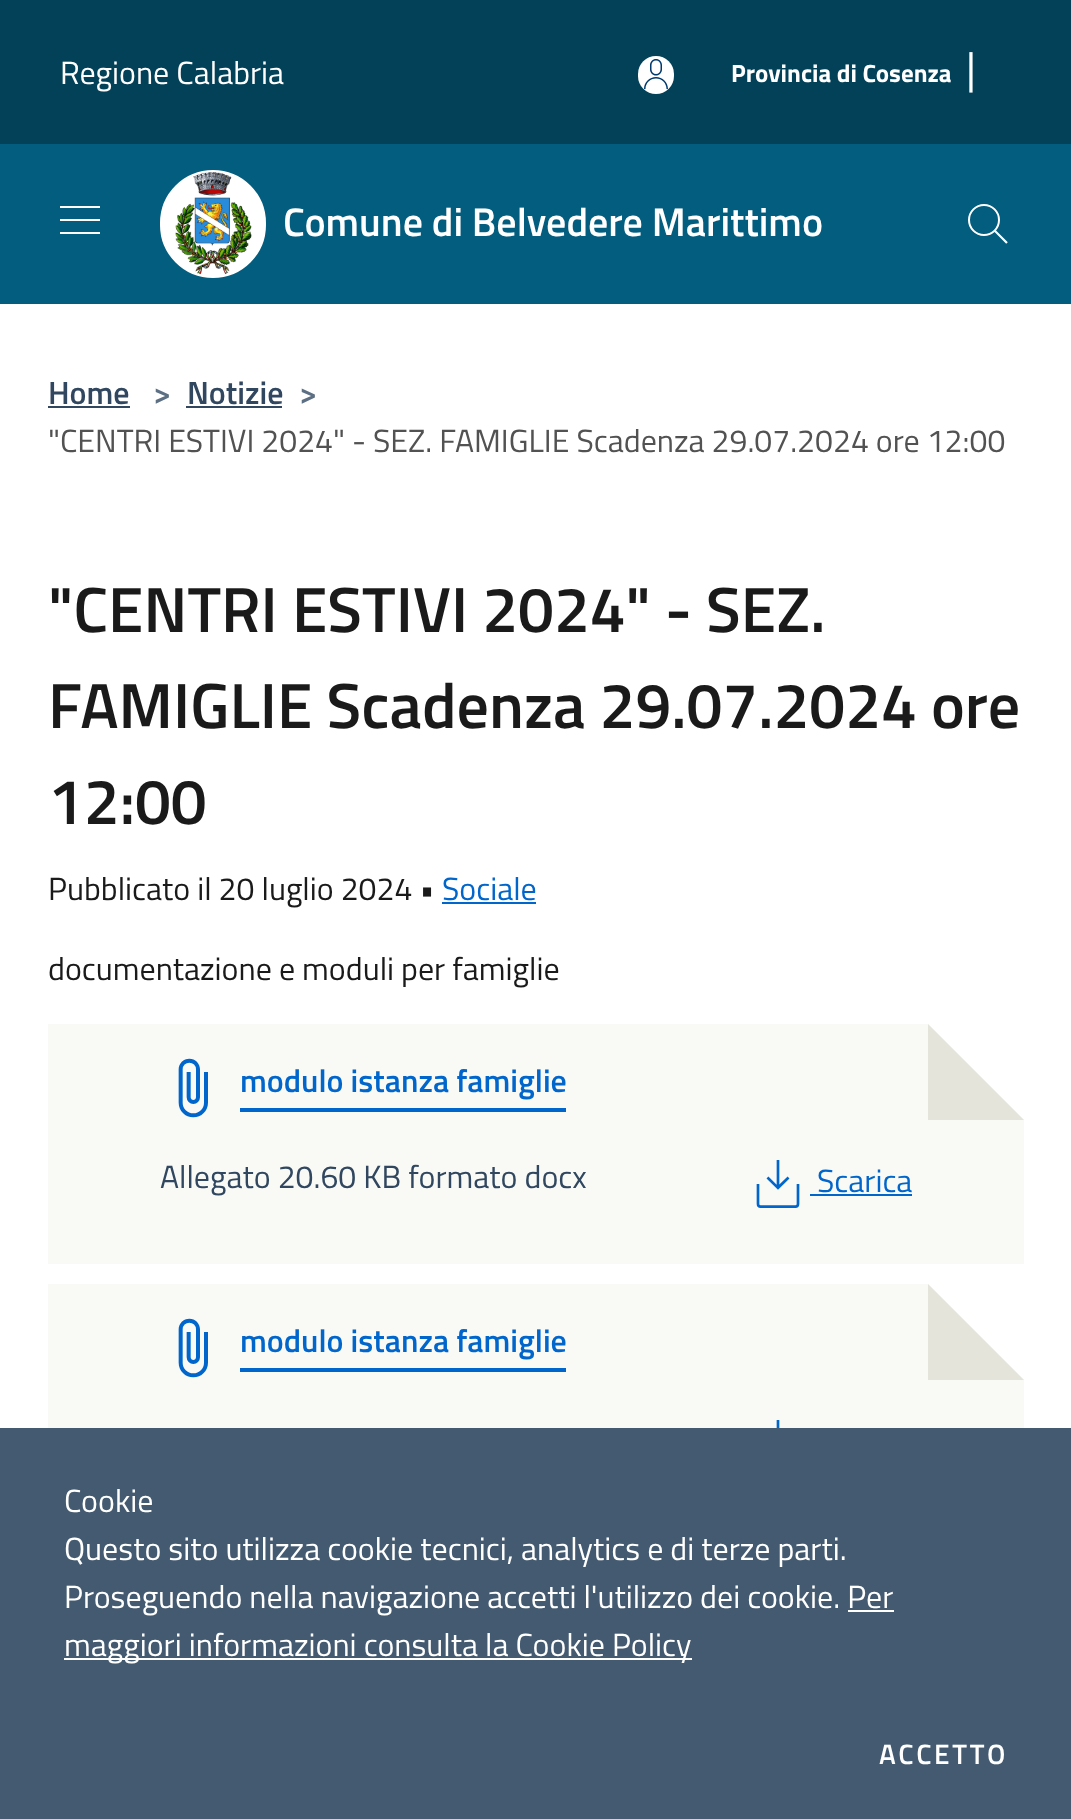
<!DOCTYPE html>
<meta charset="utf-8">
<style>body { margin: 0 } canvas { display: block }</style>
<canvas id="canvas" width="1071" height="1819"></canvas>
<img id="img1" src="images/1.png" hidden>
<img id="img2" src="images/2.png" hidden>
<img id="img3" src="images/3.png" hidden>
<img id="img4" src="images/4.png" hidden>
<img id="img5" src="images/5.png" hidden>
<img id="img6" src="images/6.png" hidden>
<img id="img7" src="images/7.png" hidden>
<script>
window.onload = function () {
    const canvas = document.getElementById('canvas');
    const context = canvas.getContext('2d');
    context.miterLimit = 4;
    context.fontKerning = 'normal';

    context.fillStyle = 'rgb(255, 255, 255)';
    context.fillRect(0, 0, 1071, 1819);
    context.fillStyle = 'rgb(2, 65, 88)';
    context.fillRect(0, 0, 1071, 144);
    context.fillStyle = 'rgb(255, 255, 255)';
    context.beginPath();
    context.roundRect(638, 56, 36, 38, 18);
    context.fill();
    context.drawImage(document.getElementById('img1'), 644, 59, 24, 30);
    context.fillStyle = 'rgb(3, 93, 127)';
    context.fillRect(0, 144, 1071, 160);
    context.drawImage(document.getElementById('img2'), 60, 206, 40, 28);
    context.fillStyle = 'rgb(255, 255, 255)';
    context.beginPath();
    context.roundRect(161, 171, 104, 106, 52);
    context.fill();
    context.strokeStyle = 'rgb(255, 255, 255)';
    context.lineWidth = 2;
    context.stroke();
    context.drawImage(document.getElementById('img3'), 175, 172, 77, 103);
    context.drawImage(document.getElementById('img4'), 968, 204, 40, 40);
    context.fillStyle = 'rgb(48, 71, 95)';
    context.fillRect(48, 406, 82, 2);
    context.fillRect(186, 406, 96, 2);
    context.fillStyle = 'rgb(0, 102, 204)';
    context.fillRect(442, 902, 94, 2);
    context.fillStyle = 'rgb(249, 249, 245)';
    context.fillRect(48, 1024, 976, 240);
    context.fillStyle = 'rgb(255, 255, 255)';
    context.beginPath();
    context.moveTo(1024, 1024);
    context.lineTo(1024, 1120);
    context.lineTo(928, 1024);
    context.closePath();
    context.fill();
    context.drawImage(document.getElementById('img5'), 178, 1058, 30, 60);
    context.fillStyle = 'rgb(0, 102, 204)';
    context.fillRect(240, 1108, 326, 4);
    context.fillStyle = 'rgb(228, 228, 219)';
    context.beginPath();
    context.moveTo(928, 1120);
    context.lineTo(928, 1024);
    context.lineTo(1024, 1120);
    context.closePath();
    context.fill();
    context.drawImage(document.getElementById('img6'), 756, 1160, 44, 48);
    context.fillStyle = 'rgb(0, 102, 204)';
    context.fillRect(810, 1194, 102, 2);
    context.fillStyle = 'rgb(249, 249, 245)';
    context.fillRect(48, 1284, 976, 144);
    context.fillStyle = 'rgb(255, 255, 255)';
    context.beginPath();
    context.moveTo(1024, 1284);
    context.lineTo(1024, 1380);
    context.lineTo(928, 1284);
    context.closePath();
    context.fill();
    context.drawImage(document.getElementById('img5'), 178, 1318, 30, 60);
    context.fillStyle = 'rgb(0, 102, 204)';
    context.fillRect(240, 1368, 326, 4);
    context.fillStyle = 'rgb(228, 228, 219)';
    context.beginPath();
    context.moveTo(928, 1380);
    context.lineTo(928, 1284);
    context.lineTo(1024, 1380);
    context.closePath();
    context.fill();
    context.drawImage(document.getElementById('img7'), 776, 1420, 4, 8);
    context.fillStyle = 'rgb(67, 90, 112)';
    context.fillRect(0, 1428, 1071, 391);
    context.fillStyle = 'rgb(255, 255, 255)';
    context.fillRect(848, 1610, 46, 2);
    context.fillRect(64, 1658, 628, 2);
    context.font = '32px Titillium Web';
    context.fillText('Regione Calabria', 60, 84);
    context.font = 'bold 25px Titillium Web';
    context.fillText('Provincia di Cosenza', 731, 82);
    context.font = '43px Titillium Web';
    context.fillText('|', 966, 83);
    context.font = '600 40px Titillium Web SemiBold';
    context.fillText('Comune di Belvedere Marittimo', 283, 236);
    context.font = '600 32px Titillium Web SemiBold';
    context.fillStyle = 'rgb(48, 71, 95)';
    context.fillText('Home', 48, 404);
    context.fillStyle = 'rgb(93, 112, 131)';
    context.fillText('>', 153, 404);
    context.fillStyle = 'rgb(48, 71, 95)';
    context.fillText('Notizie', 187, 404);
    context.fillStyle = 'rgb(93, 112, 131)';
    context.fillText('>', 299, 404);
    context.font = '32px Titillium Web';
    context.fillStyle = 'rgb(82, 82, 82)';
    context.fillText('"CENTRI ESTIVI 2024" - SEZ. FAMIGLIE Scadenza 29.07.2024 ore 12:00', 48, 452);
    context.font = '600 64px Titillium Web SemiBold';
    context.fillStyle = 'rgb(26, 26, 26)';
    context.fillText('"CENTRI ESTIVI 2024" - SEZ.', 48, 632);
    context.fillText('FAMIGLIE Scadenza 29.07.2024 ore', 48, 728);
    context.fillText('12:00', 48, 824);
    context.font = '32px Titillium Web';
    context.fillText('Pubblicato il 20 luglio 2024 •', 48, 900);
    context.fillStyle = 'rgb(0, 102, 204)';
    context.fillText('Sociale', 442, 900);
    context.fillStyle = 'rgb(26, 26, 26)';
    context.fillText('documentazione e moduli per famiglie', 48, 980);
    context.font = '600 32px Titillium Web SemiBold';
    context.fillStyle = 'rgb(0, 102, 204)';
    context.fillText('modulo istanza famiglie', 240, 1092);
    context.font = '32px Titillium Web';
    context.fillStyle = 'rgb(48, 71, 95)';
    context.fillText('Allegato 20.60 KB formato docx', 160, 1188);
    context.fillStyle = 'rgb(0, 102, 204)';
    context.fillText('Scarica', 817, 1192);
    context.font = '600 32px Titillium Web SemiBold';
    context.fillText('modulo istanza famiglie', 240, 1352);
    context.font = '32px Titillium Web';
    context.fillStyle = 'rgb(255, 255, 255)';
    context.fillText('Cookie', 64, 1512);
    context.fillText('Questo sito utilizza cookie tecnici, analytics e di terze parti.', 64, 1560);
    context.fillText('Proseguendo nella navigazione accetti l\'utilizzo dei cookie. Per', 64, 1608);
    context.fillText('maggiori informazioni consulta la Cookie Policy', 64, 1656);
    context.letterSpacing = '2.75px';
    context.font = '600 28px Titillium Web SemiBold';
    context.fillText('ACCETTO', 879, 1764);
};
</script>
